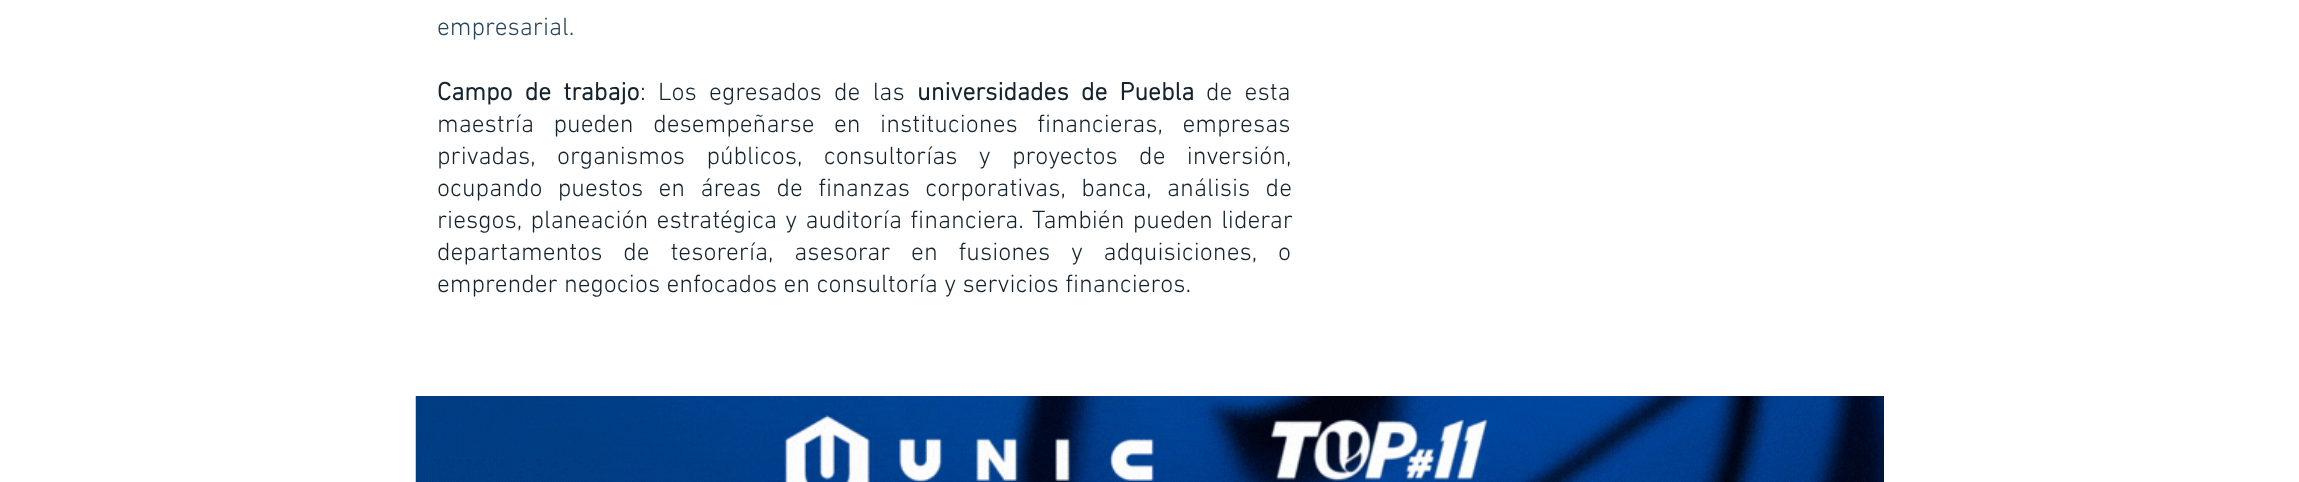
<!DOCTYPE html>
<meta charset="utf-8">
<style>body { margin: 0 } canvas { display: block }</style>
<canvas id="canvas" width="2299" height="482"></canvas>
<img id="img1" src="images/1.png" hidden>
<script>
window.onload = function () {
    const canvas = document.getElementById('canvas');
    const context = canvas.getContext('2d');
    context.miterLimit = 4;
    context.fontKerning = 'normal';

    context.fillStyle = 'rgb(255, 255, 255)';
    context.fillRect(0, 0, 2299, 482);
    context.drawImage(document.getElementById('img1'), 415, 396, 1469, 86);
    context.font = '300 25.5px "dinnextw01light"';
    context.fillStyle = 'rgb(40, 71, 93)';
    context.fillText('empresarial.', 437, 35);
    context.wordSpacing = '6px';
    context.font = 'bold 25.5px "dinnextw01light"';
    context.fillStyle = 'rgb(20, 35, 46)';
    context.fillText('Campo de trabajo', 437, 100);
    context.font = '300 25.5px "dinnextw01light"';
    context.fillText(': Los egresados de las', 640, 100);
    context.font = 'bold 25.5px "dinnextw01light"';
    context.fillText('universidades de Puebla', 917, 100);
    context.font = '300 25.5px "dinnextw01light"';
    context.fillText('de esta', 1206, 100);
    context.wordSpacing = '13.25px';
    context.fillText('maestría pueden desempeñarse en instituciones financieras, empresas', 437, 132);
    context.wordSpacing = '15px';
    context.fillText('privadas, organismos públicos, consultorías y proyectos de inversión,', 437, 164);
    context.wordSpacing = '9px';
    context.fillText('ocupando puestos en áreas de finanzas corporativas, banca, análisis de', 437, 196);
    context.wordSpacing = '2px';
    context.fillText('riesgos, planeación estratégica y auditoría financiera. También pueden liderar', 437, 228);
    context.wordSpacing = '14.5px';
    context.fillText('departamentos de tesorería, asesorar en fusiones y adquisiciones, o', 437, 260);
    context.wordSpacing = '0px';
    context.fillText('emprender negocios enfocados en consultoría y servicios financieros.', 437, 292);
};
</script>
